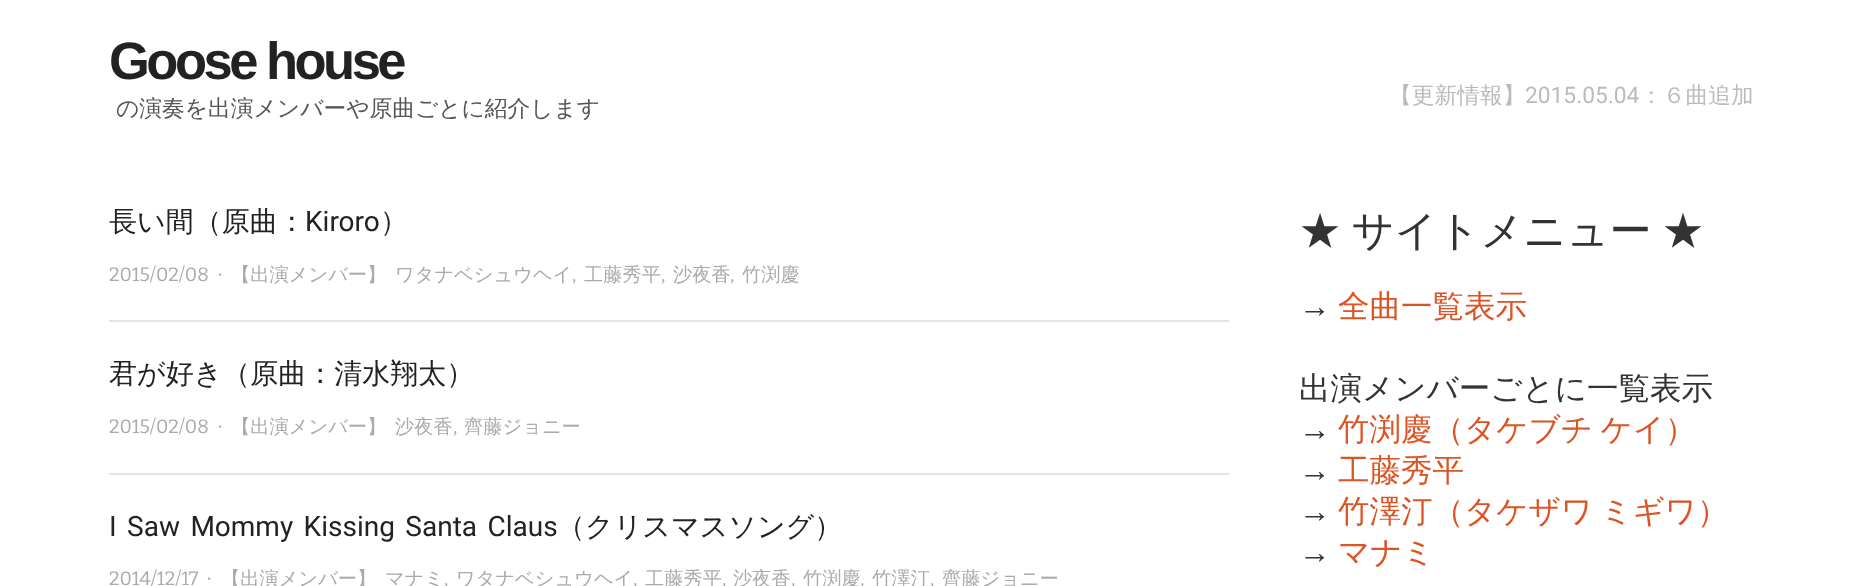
<!DOCTYPE html>
<meta charset="utf-8">
<style>body { margin: 0 } canvas { display: block }</style>
<canvas id="canvas" width="1862" height="586"></canvas>
<script>
window.onload = function () {
    const canvas = document.getElementById('canvas');
    const context = canvas.getContext('2d');
    context.miterLimit = 4;
    context.fontKerning = 'normal';

    context.fillStyle = 'rgb(255, 255, 255)';
    context.fillRect(0, 0, 1862, 586);
    context.fillStyle = 'rgb(229, 229, 229)';
    context.fillRect(109, 320, 1120, 2);
    context.fillRect(109, 473, 1120, 2);
    context.letterSpacing = '-3.5px';
    context.font = 'bold 52.5px Liberation Sans';
    context.fillStyle = 'rgb(34, 34, 34)';
    context.fillText('Goose house', 109, 79);
    context.letterSpacing = '0px';
    context.font = '500 22.75px WenQuanYi Zen Hei';
    context.fillStyle = 'rgb(85, 85, 85)';
    context.fillText('の演奏を出演メンバーや原曲ごとに紹介します', 116, 116);
    context.fillStyle = 'rgb(187, 187, 187)';
    context.fillText('【更新情報】', 1389, 103);
    context.font = '22.75px Roboto';
    context.fillText('2015.05.04', 1525, 103);
    context.font = '500 22.75px WenQuanYi Zen Hei';
    context.fillText('：６曲追加', 1640, 103);
    context.font = '500 28px WenQuanYi Zen Hei';
    context.fillStyle = 'rgb(34, 34, 34)';
    context.fillText('長い間（原曲：', 109, 231);
    context.font = '28px Roboto';
    context.fillText('Kiroro', 305, 231);
    context.font = '500 28px WenQuanYi Zen Hei';
    context.fillText('）', 380, 231);
    context.font = '100 19.25px Bitter';
    context.fillStyle = 'rgb(170, 170, 170)';
    context.fillText('2015/02/08', 109, 281);
    context.font = '19.25px Liberation Serif';
    context.fillText('·', 217, 281);
    context.font = '500 19.25px WenQuanYi Zen Hei';
    context.fillText('【出演メンバー】', 231, 281);
    context.fillText('ワタナベシュウヘイ', 395, 281);
    context.fillText('工藤秀平', 584, 281);
    context.fillText('沙夜香', 673, 281);
    context.fillText('竹渕慶', 742, 281);
    context.font = '100 19.25px Bitter';
    context.fillText(',', 572, 281);
    context.fillText(',', 661, 281);
    context.fillText(',', 730, 281);
    context.font = '500 28px WenQuanYi Zen Hei';
    context.fillStyle = 'rgb(34, 34, 34)';
    context.fillText('君が好き（原曲：清水翔太）', 109, 383);
    context.font = '100 19.25px Bitter';
    context.fillStyle = 'rgb(170, 170, 170)';
    context.fillText('2015/02/08', 109, 433);
    context.font = '19.25px Liberation Serif';
    context.fillText('·', 217, 433);
    context.font = '500 19.25px WenQuanYi Zen Hei';
    context.fillText('【出演メンバー】', 231, 433);
    context.fillText('沙夜香', 395, 433);
    context.fillText('齊藤ジョニー', 464, 433);
    context.font = '100 19.25px Bitter';
    context.fillText(',', 453, 433);
    context.wordSpacing = '3.5px';
    context.font = '28px Roboto';
    context.fillStyle = 'rgb(34, 34, 34)';
    context.fillText('I Saw Mommy Kissing Santa Claus', 109, 536);
    context.wordSpacing = '0px';
    context.font = '500 28px WenQuanYi Zen Hei';
    context.fillText('（クリスマスソング）', 557, 536);
    context.font = '100 19.25px Bitter';
    context.fillStyle = 'rgb(170, 170, 170)';
    context.fillText('2014/12/17', 109, 585);
    context.font = '19.25px Liberation Serif';
    context.fillText('·', 206, 585);
    context.font = '500 19.25px WenQuanYi Zen Hei';
    context.fillText('【出演メンバー】', 221, 585);
    context.fillText('マナミ', 385, 585);
    context.fillText('ワタナベシュウヘイ', 456, 585);
    context.fillText('工藤秀平', 645, 585);
    context.fillText('沙夜香', 733, 585);
    context.fillText('竹渕慶', 803, 585);
    context.fillText('竹澤汀', 872, 585);
    context.fillText('齊藤ジョニー', 942, 585);
    context.font = '100 19.25px Bitter';
    context.fillText(',', 444, 585);
    context.fillText(',', 633, 585);
    context.fillText(',', 722, 585);
    context.fillText(',', 791, 585);
    context.fillText(',', 860, 585);
    context.fillText(',', 930, 585);
    context.wordSpacing = '-2px';
    context.font = '500 42px WenQuanYi Zen Hei';
    context.fillStyle = 'rgb(51, 51, 51)';
    context.fillText('★ サイトメニュー ★', 1299, 245);
    context.wordSpacing = '0px';
    context.font = '31.5px Liberation Sans';
    context.fillText('→', 1299, 317);
    context.font = '500 31.5px WenQuanYi Zen Hei';
    context.fillStyle = 'rgb(221, 84, 36)';
    context.fillText('全曲一覧表示', 1338, 317);
    context.fillStyle = 'rgb(51, 51, 51)';
    context.fillText('出演メンバーごとに一覧表示', 1299, 399);
    context.font = '31.5px Liberation Sans';
    context.fillText('→', 1299, 440);
    context.wordSpacing = '-2px';
    context.font = '500 31.5px WenQuanYi Zen Hei';
    context.fillStyle = 'rgb(221, 84, 36)';
    context.fillText('竹渕慶（タケブチ ケイ）', 1338, 440);
    context.wordSpacing = '0px';
    context.font = '31.5px Liberation Sans';
    context.fillStyle = 'rgb(51, 51, 51)';
    context.fillText('→', 1299, 481);
    context.font = '500 31.5px WenQuanYi Zen Hei';
    context.fillStyle = 'rgb(221, 84, 36)';
    context.fillText('工藤秀平', 1338, 481);
    context.font = '31.5px Liberation Sans';
    context.fillStyle = 'rgb(51, 51, 51)';
    context.fillText('→', 1299, 522);
    context.wordSpacing = '-2px';
    context.font = '500 31.5px WenQuanYi Zen Hei';
    context.fillStyle = 'rgb(221, 84, 36)';
    context.fillText('竹澤汀（タケザワ ミギワ）', 1338, 522);
    context.wordSpacing = '0px';
    context.font = '31.5px Liberation Sans';
    context.fillStyle = 'rgb(51, 51, 51)';
    context.fillText('→', 1299, 563);
    context.font = '500 31.5px WenQuanYi Zen Hei';
    context.fillStyle = 'rgb(221, 84, 36)';
    context.fillText('マナミ', 1338, 563);
};
</script>
